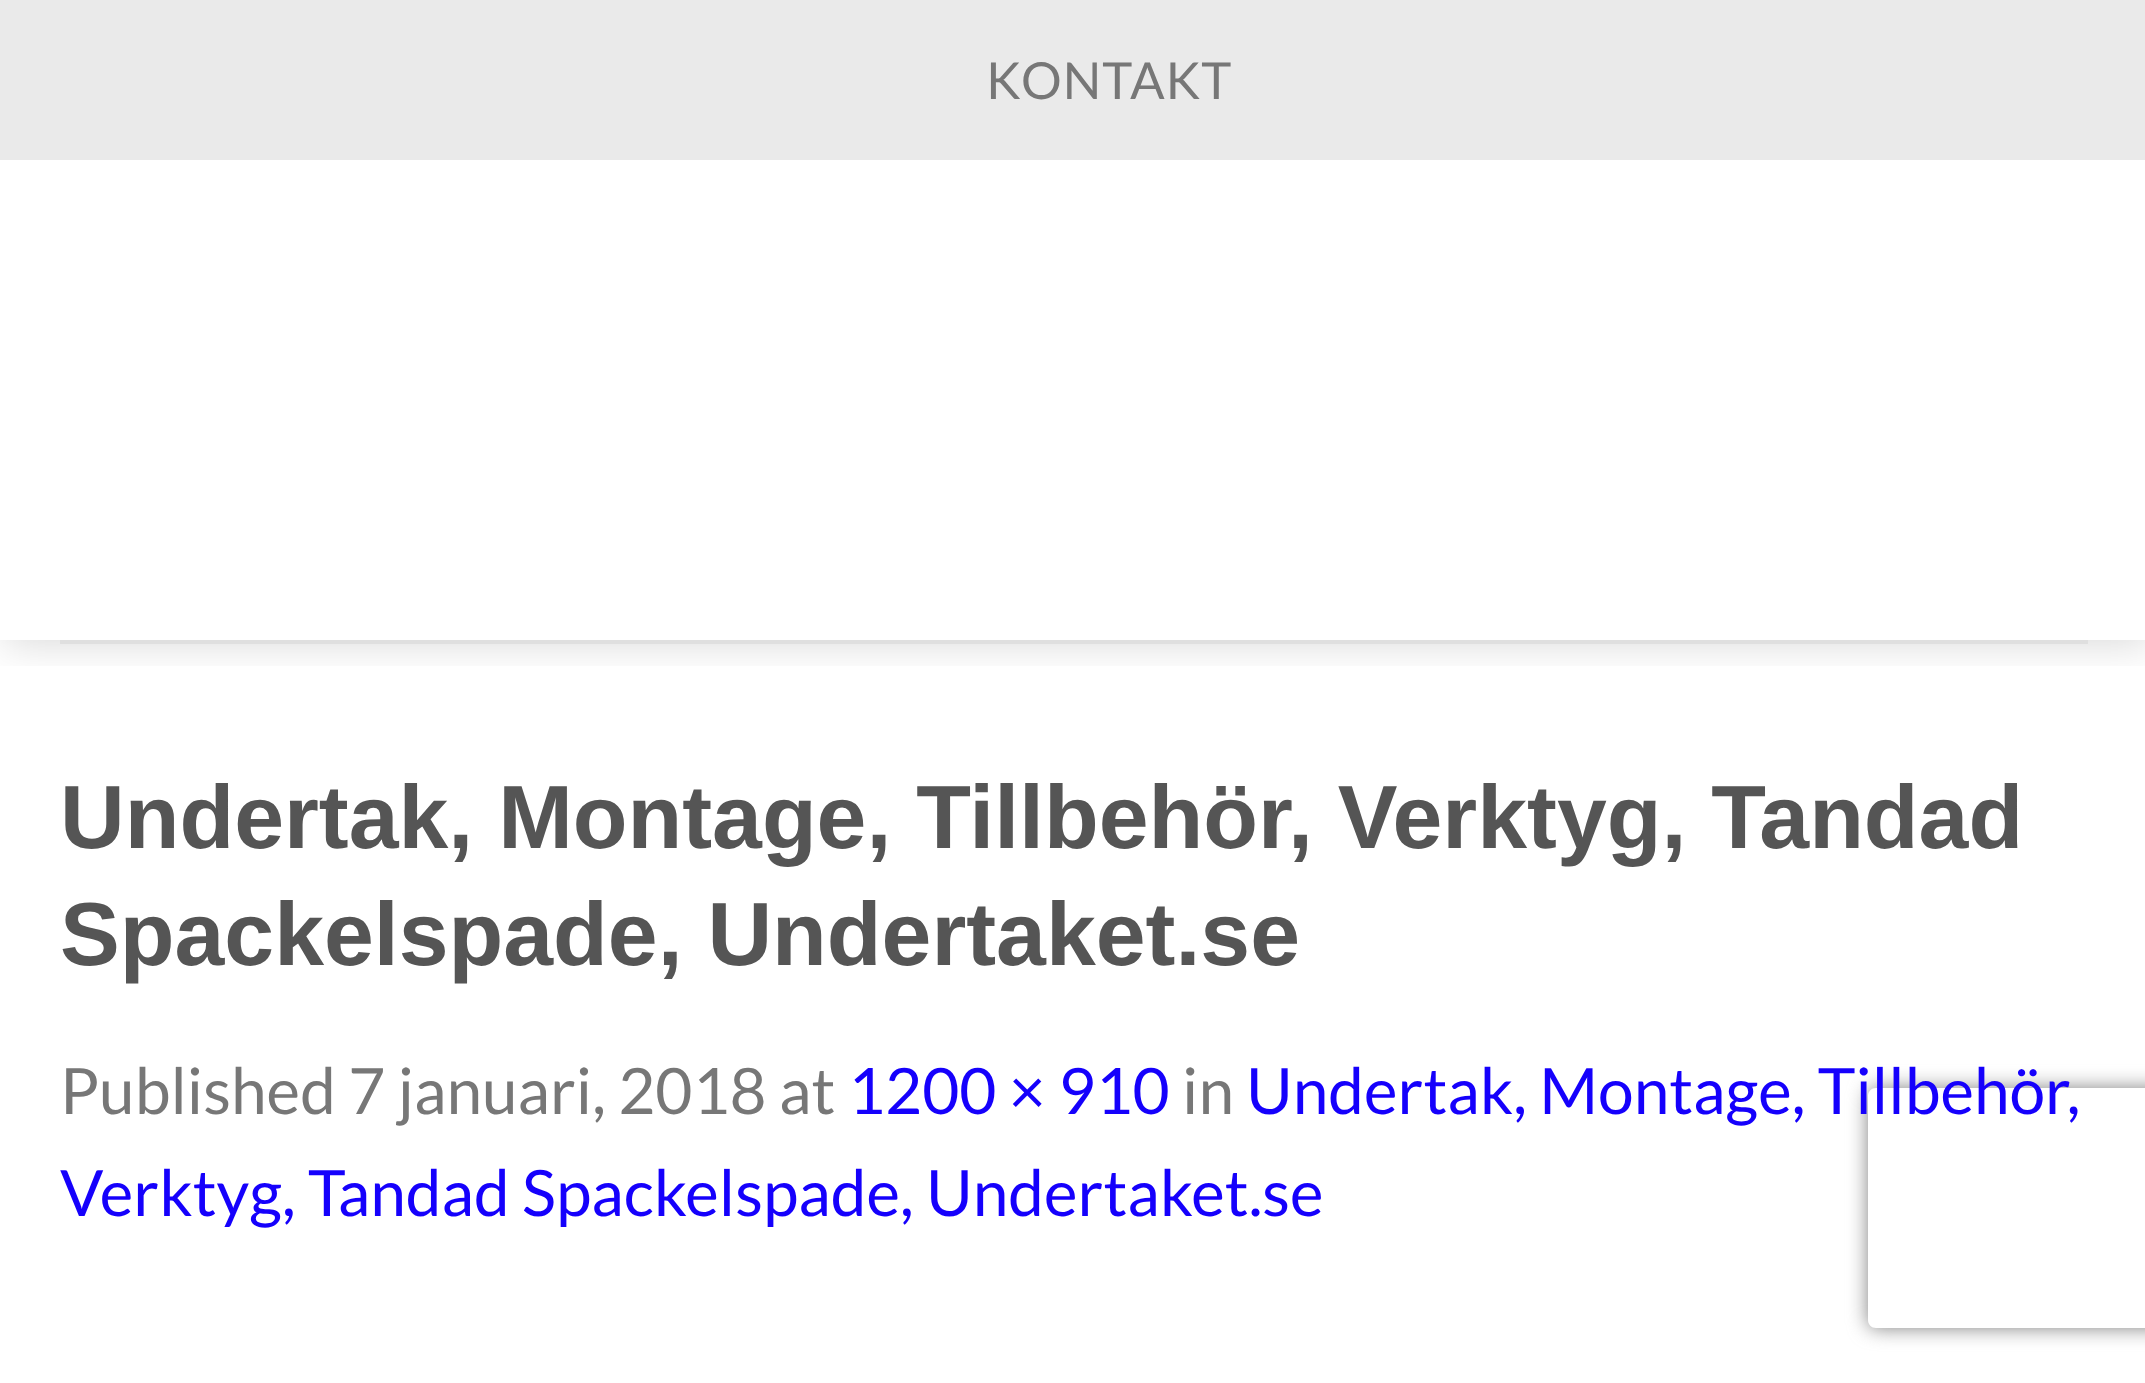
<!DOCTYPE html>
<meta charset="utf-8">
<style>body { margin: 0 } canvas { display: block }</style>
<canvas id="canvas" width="2145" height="1383"></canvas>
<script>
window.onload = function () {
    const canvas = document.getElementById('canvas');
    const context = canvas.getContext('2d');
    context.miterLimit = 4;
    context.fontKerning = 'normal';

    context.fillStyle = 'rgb(255, 255, 255)';
    context.fillRect(0, 0, 2145, 1383);
    context.save();
    context.beginPath();
    context.rect(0, 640, 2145, 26);
    context.clip();
    context.fillStyle = 'rgba(0, 0, 0, 0.15)';
    context.filter = 'blur(20px)';
    context.beginPath();
    context.rect(4, 4, 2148, 640);
    context.fill();
    context.filter = 'none';
    context.restore();
    context.fillStyle = 'rgb(234, 234, 234)';
    context.fillRect(0, 0, 2145, 160);
    context.fillStyle = 'rgb(223, 223, 223)';
    context.fillRect(60, 640, 2028, 4);
    context.save();
    context.beginPath();
    context.moveTo(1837, 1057);
    context.lineTo(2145, 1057);
    context.lineTo(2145, 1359);
    context.lineTo(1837, 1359);
    context.closePath();
    context.moveTo(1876, 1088);
    context.lineTo(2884, 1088);
    context.bezierCurveTo(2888.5, 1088, 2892, 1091.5, 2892, 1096);
    context.lineTo(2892, 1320);
    context.bezierCurveTo(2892, 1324.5, 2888.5, 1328, 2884, 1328);
    context.lineTo(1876, 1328);
    context.bezierCurveTo(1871.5, 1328, 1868, 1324.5, 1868, 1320);
    context.lineTo(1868, 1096);
    context.bezierCurveTo(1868, 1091.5, 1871.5, 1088, 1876, 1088);
    context.closePath();
    context.clip('evenodd');
    context.fillStyle = 'rgb(128, 128, 128)';
    context.filter = 'blur(10px)';
    context.beginPath();
    context.roundRect(1868, 1088, 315, 240, 8);
    context.fill();
    context.filter = 'none';
    context.restore();
    context.letterSpacing = '1px';
    context.font = '51px Lato';
    context.fillStyle = 'rgb(119, 119, 119)';
    context.fillText('KONTAKT', 986, 99);
    context.letterSpacing = '0px';
    context.font = 'bold 89.6px Liberation Sans';
    context.fillStyle = 'rgb(85, 85, 85)';
    context.fillText('Undertak, Montage, Tillbehör, Verktyg, Tandad', 60, 848);
    context.fillText('Spackelspade, Undertaket.se', 60, 965);
    context.font = '64px Lato';
    context.fillStyle = 'rgb(119, 119, 119)';
    context.fillText('Published 7 januari, 2018 at', 60, 1114);
    context.fillStyle = 'rgb(21, 0, 252)';
    context.fillText('1200 × 910', 848, 1114);
    context.fillStyle = 'rgb(119, 119, 119)';
    context.fillText('in', 1182, 1114);
    context.fillStyle = 'rgb(21, 0, 252)';
    context.fillText('Undertak, Montage, Tillbehör,', 1246, 1114);
    context.fillText('Verktyg, Tandad Spackelspade, Undertaket.se', 60, 1216);
};
</script>
